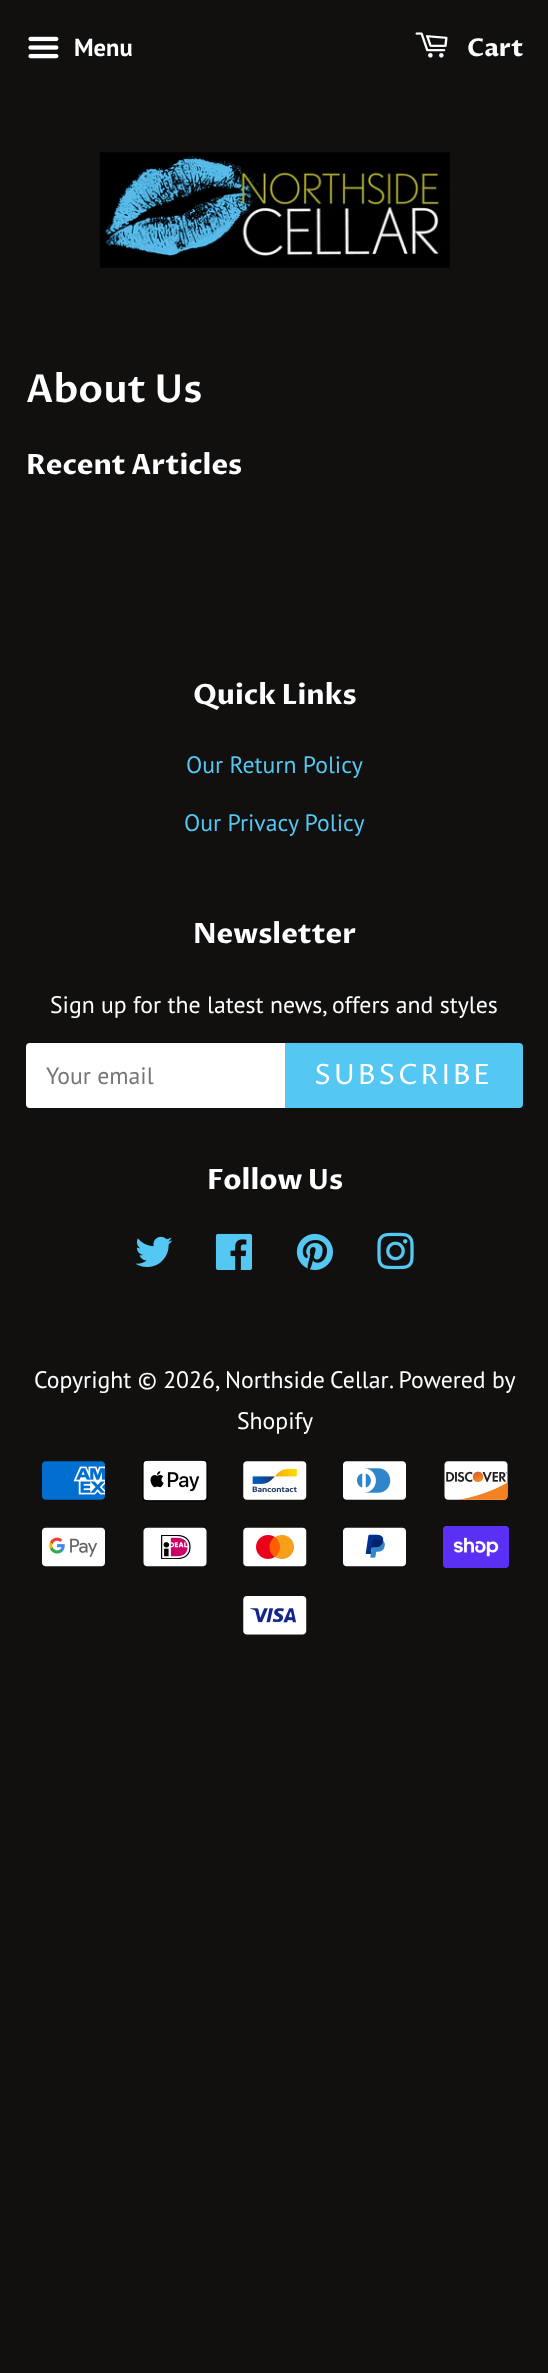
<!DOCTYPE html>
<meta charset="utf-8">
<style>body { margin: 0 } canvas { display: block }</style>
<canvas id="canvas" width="548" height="2373"></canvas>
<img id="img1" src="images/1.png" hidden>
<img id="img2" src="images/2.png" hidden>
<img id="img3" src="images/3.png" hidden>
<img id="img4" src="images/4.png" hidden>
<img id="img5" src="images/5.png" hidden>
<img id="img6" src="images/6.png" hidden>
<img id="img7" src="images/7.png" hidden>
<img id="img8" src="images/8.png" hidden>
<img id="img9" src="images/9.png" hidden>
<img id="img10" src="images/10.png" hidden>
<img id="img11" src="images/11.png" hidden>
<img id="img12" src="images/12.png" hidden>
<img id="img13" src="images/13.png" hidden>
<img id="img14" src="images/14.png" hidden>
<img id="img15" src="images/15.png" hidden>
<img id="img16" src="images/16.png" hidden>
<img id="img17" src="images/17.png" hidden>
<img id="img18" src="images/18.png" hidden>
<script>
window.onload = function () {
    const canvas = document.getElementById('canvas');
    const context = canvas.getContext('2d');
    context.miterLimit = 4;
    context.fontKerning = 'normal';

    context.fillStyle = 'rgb(17, 16, 15)';
    context.fillRect(0, 0, 548, 2373);
    context.drawImage(document.getElementById('img1'), 28, 36, 31, 23);
    context.drawImage(document.getElementById('img2'), 415, 32, 33, 26);
    context.drawImage(document.getElementById('img3'), 99, 152, 351, 116);
    context.fillStyle = 'rgb(255, 255, 255)';
    context.beginPath();
    context.roundRect(26, 1043, 259, 65, [4, 0, 0, 4]);
    context.fill();
    context.beginPath();
    context.roundRect(27, 1044, 257, 63, [3, 0, 0, 3]);
    context.strokeStyle = 'rgba(255, 255, 255, 0.15)';
    context.lineWidth = 2;
    context.stroke();
    context.fillStyle = 'rgb(84, 199, 242)';
    context.beginPath();
    context.roundRect(285, 1043, 238, 65, [0, 4, 4, 0]);
    context.fill();
    context.drawImage(document.getElementById('img4'), 135, 1236, 38, 31);
    context.drawImage(document.getElementById('img5'), 215, 1233, 37, 37);
    context.drawImage(document.getElementById('img6'), 296, 1233, 37, 37);
    context.drawImage(document.getElementById('img7'), 377, 1232, 37, 38);
    context.drawImage(document.getElementById('img8'), 42, 1461, 63, 39);
    context.drawImage(document.getElementById('img9'), 142, 1460, 66, 42);
    context.drawImage(document.getElementById('img10'), 243, 1461, 64, 39);
    context.drawImage(document.getElementById('img11'), 343, 1461, 63, 39);
    context.drawImage(document.getElementById('img12'), 444, 1461, 64, 39);
    context.drawImage(document.getElementById('img13'), 42, 1527, 63, 40);
    context.drawImage(document.getElementById('img14'), 143, 1527, 64, 40);
    context.drawImage(document.getElementById('img15'), 243, 1527, 64, 40);
    context.drawImage(document.getElementById('img16'), 343, 1527, 63, 40);
    context.drawImage(document.getElementById('img17'), 443, 1526, 66, 42);
    context.drawImage(document.getElementById('img18'), 243, 1596, 64, 39);
    context.font = 'bold 24.5px PT Sans';
    context.fillStyle = 'rgb(255, 255, 255)';
    context.fillText('Menu', 74, 56);
    context.font = 'bold 24.5px Proza Libre';
    context.fillText('Cart', 467, 56);
    context.font = '600 38.5px Proza Libre';
    context.fillText('About Us', 26, 402);
    context.font = 'bold 28px Proza Libre';
    context.fillText('Recent Articles', 26, 474);
    context.fillText('Quick Links', 193, 704);
    context.font = '23.75px PT Sans';
    context.fillStyle = 'rgb(84, 199, 242)';
    context.fillText('Our Return Policy', 186, 773);
    context.fillText('Our Privacy Policy', 184, 831);
    context.font = 'bold 28px Proza Libre';
    context.fillStyle = 'rgb(255, 255, 255)';
    context.fillText('Newsletter', 193, 943);
    context.font = '23.75px PT Sans';
    context.fillText('Sign up for the latest news, offers and styles', 50, 1013);
    context.fillStyle = 'rgb(117, 117, 117)';
    context.fillText('Your email', 46, 1084);
    context.letterSpacing = '2.75px';
    context.font = '28px Proza Libre';
    context.fillStyle = 'rgb(255, 255, 255)';
    context.fillText('SUBSCRIBE', 314, 1084);
    context.letterSpacing = '0px';
    context.font = 'bold 28px Proza Libre';
    context.fillText('Follow Us', 207, 1189);
    context.font = '23.75px PT Sans';
    context.fillText('Copyright © 2026,', 34, 1388);
    context.wordSpacing = '-1px';
    context.fillText('Northside Cellar', 225, 1388);
    context.wordSpacing = '0px';
    context.fillText('. Powered by', 389, 1388);
    context.fillText('Shopify', 237, 1429);
};
</script>
